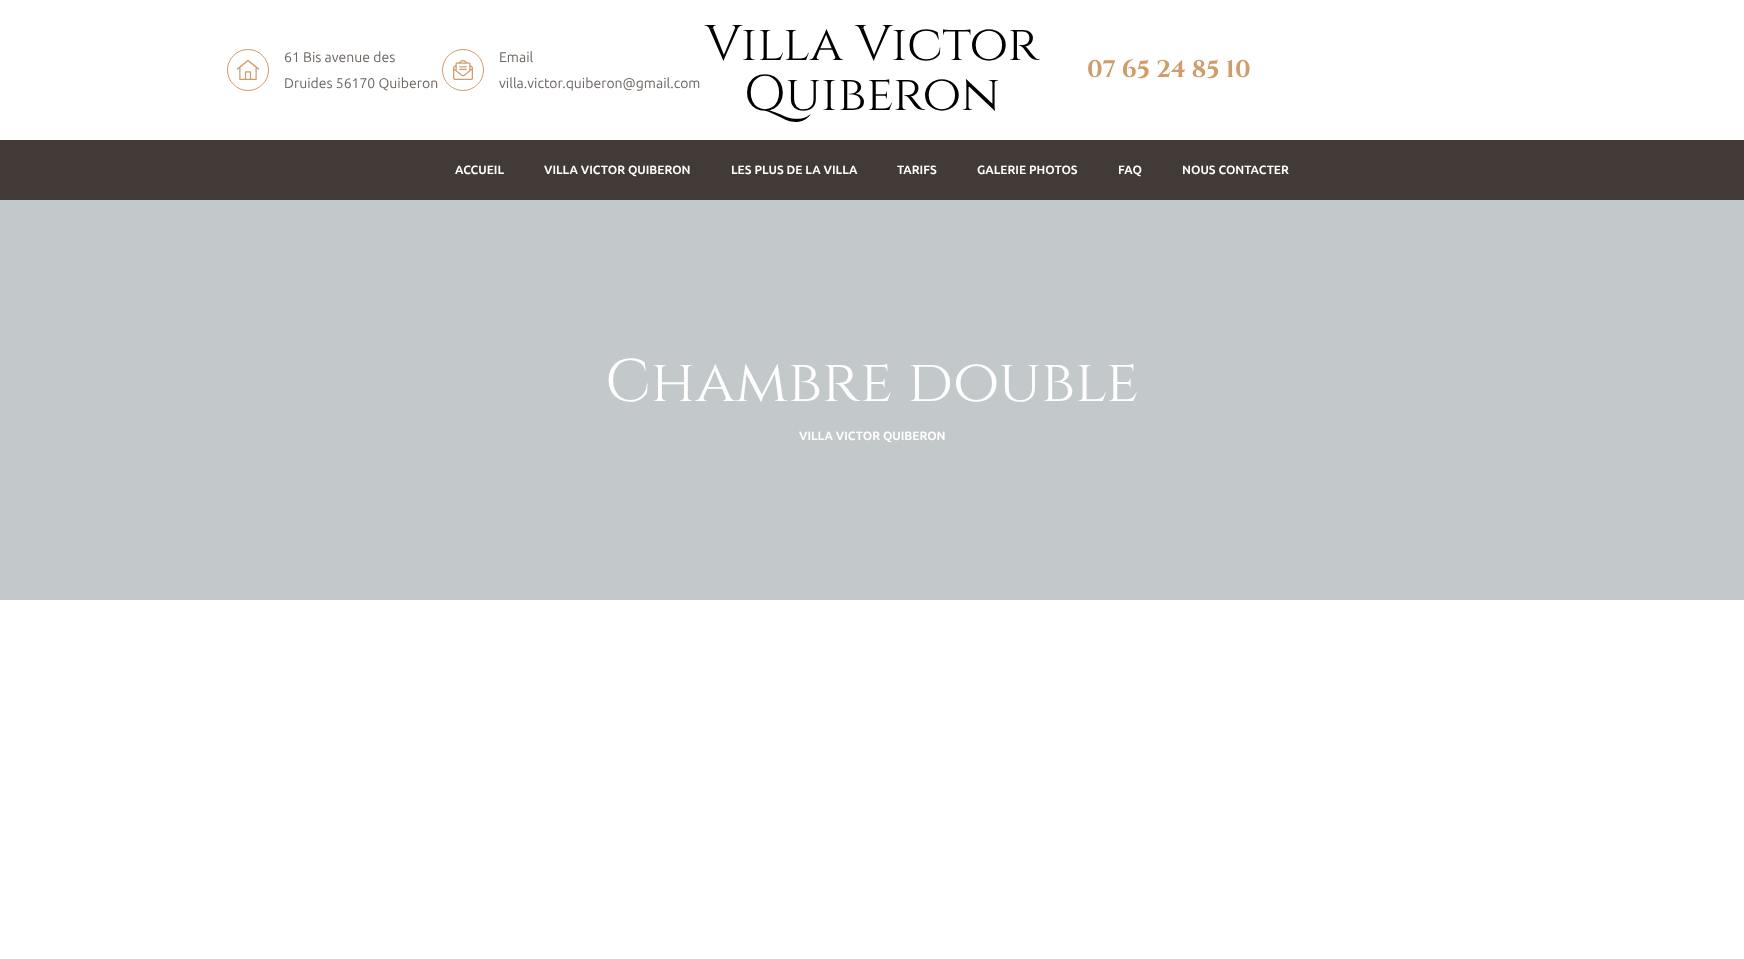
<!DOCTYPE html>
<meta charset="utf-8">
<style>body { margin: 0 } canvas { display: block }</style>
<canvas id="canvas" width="1744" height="959"></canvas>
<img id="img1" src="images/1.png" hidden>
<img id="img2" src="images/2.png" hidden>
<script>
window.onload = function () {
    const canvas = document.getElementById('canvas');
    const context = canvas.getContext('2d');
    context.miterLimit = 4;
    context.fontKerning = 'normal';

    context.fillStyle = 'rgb(255, 255, 255)';
    context.fillRect(0, 0, 1744, 959);
    context.beginPath();
    context.arc(248, 70, 20.5, 0, 2 * Math.PI);
    context.strokeStyle = 'rgb(207, 157, 108)';
    context.stroke();
    context.drawImage(document.getElementById('img1'), 236, 60, 24, 20);
    context.beginPath();
    context.arc(463, 70, 20.5, 0, 2 * Math.PI);
    context.stroke();
    context.drawImage(document.getElementById('img2'), 453, 60, 20, 20);
    context.fillStyle = 'rgb(66, 58, 54)';
    context.fillRect(0, 140, 1744, 60);
    context.fillStyle = 'rgb(195, 201, 203)';
    context.fillRect(0, 200, 1744, 400);
    context.font = '14px Ubuntu';
    context.fillStyle = 'rgb(107, 100, 96)';
    context.fillText('61 Bis avenue des', 284, 62);
    context.fillText('Druides 56170 Quiberon', 284, 88);
    context.fillText('Email', 499, 62);
    context.fillText('villa.victor.quiberon@gmail.com', 499, 88);
    context.font = '50px Cinzel';
    context.fillStyle = 'rgb(0, 0, 0)';
    context.fillText('Villa Victor', 705, 60);
    context.fillText('Quiberon', 744, 110);
    context.font = 'bold 24px Cinzel';
    context.fillStyle = 'rgb(207, 157, 108)';
    context.fillText('07 65 24 85 10', 1087, 77);
    context.font = 'bold 12px Ubuntu';
    context.fillStyle = 'rgb(255, 255, 255)';
    context.fillText('ACCUEIL', 455, 174);
    context.fillText('VILLA VICTOR QUIBERON', 544, 174);
    context.fillText('LES PLUS DE LA VILLA', 731, 174);
    context.fillText('TARIFS', 897, 174);
    context.fillText('GALERIE PHOTOS', 977, 174);
    context.fillText('FAQ', 1118, 174);
    context.fillText('NOUS CONTACTER', 1182, 174);
    context.font = '60px Cinzel';
    context.fillText('Chambre double', 605, 401);
    context.font = 'bold 12px Ubuntu';
    context.fillText('VILLA VICTOR QUIBERON', 799, 440);
};
</script>
